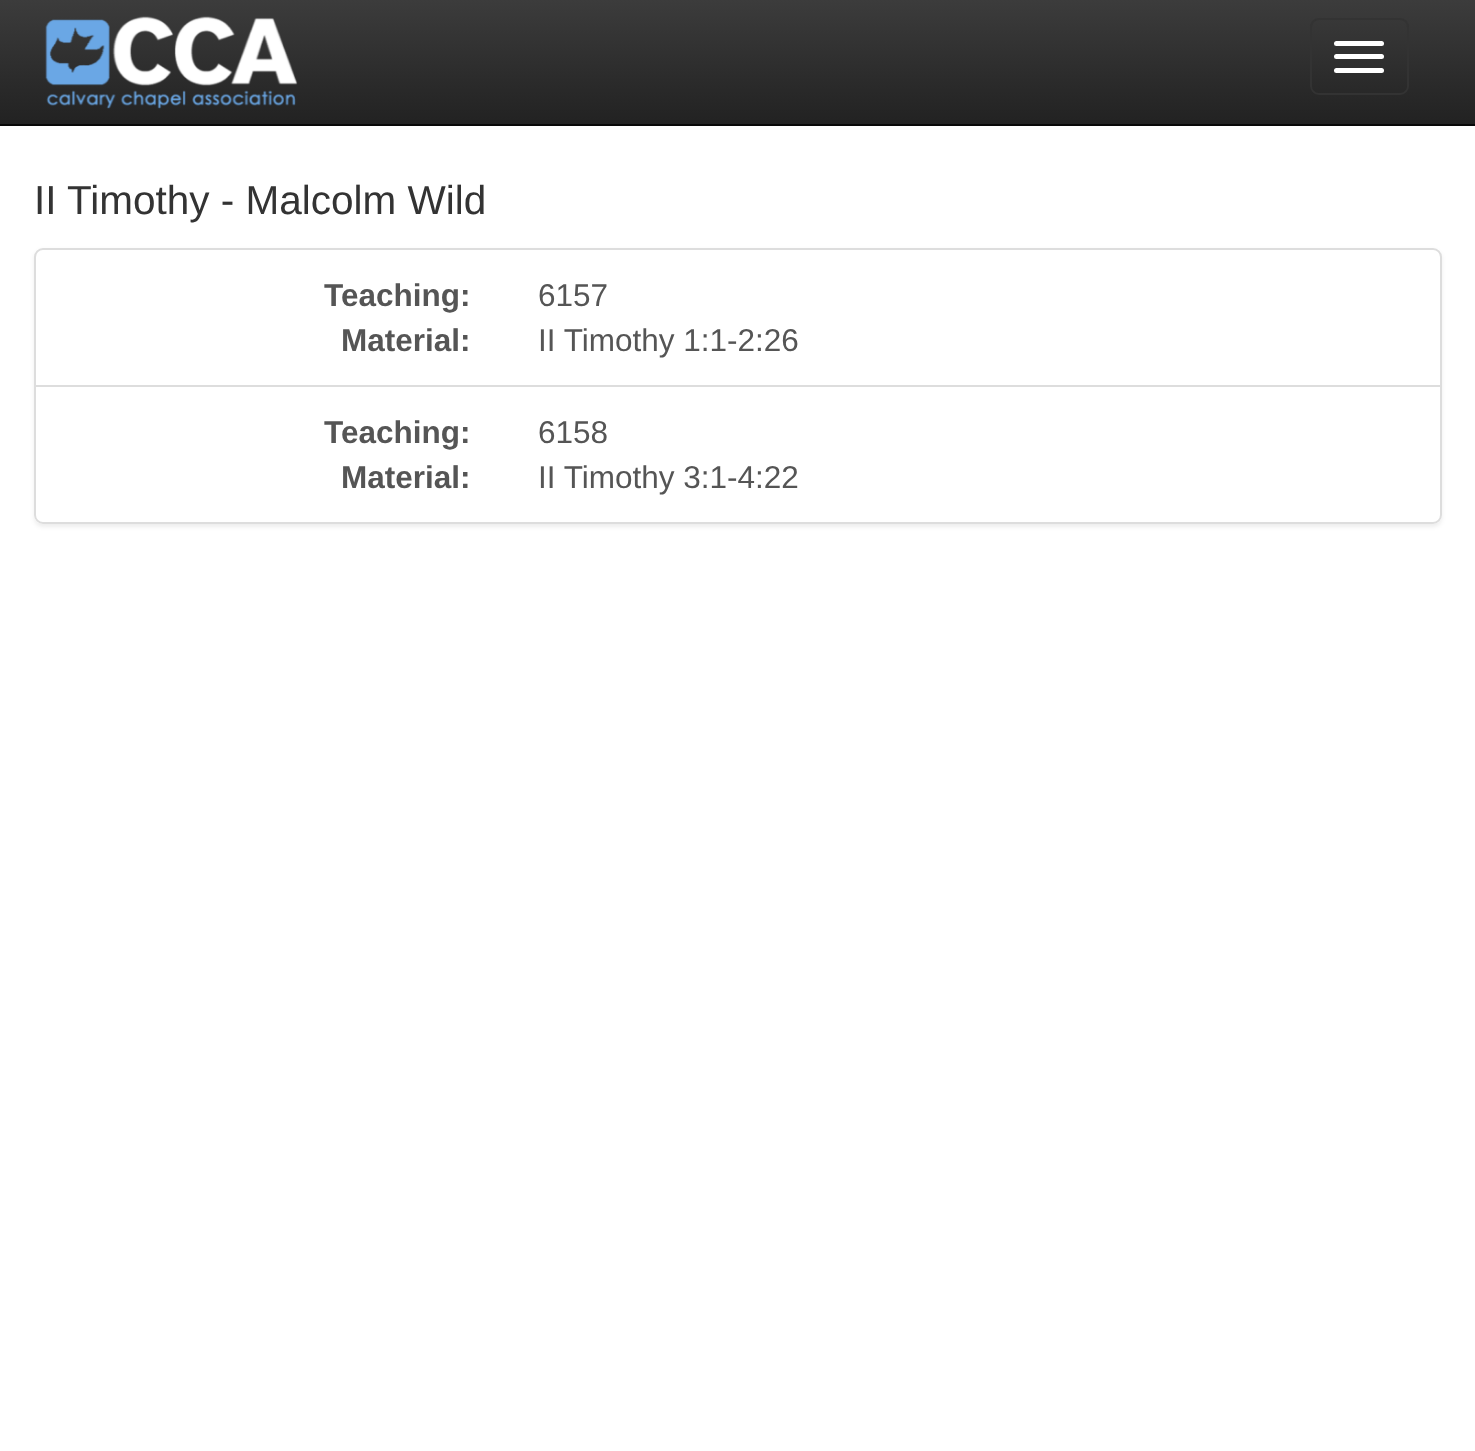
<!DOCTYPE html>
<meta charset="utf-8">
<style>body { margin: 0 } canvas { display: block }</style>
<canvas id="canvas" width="1475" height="1451"></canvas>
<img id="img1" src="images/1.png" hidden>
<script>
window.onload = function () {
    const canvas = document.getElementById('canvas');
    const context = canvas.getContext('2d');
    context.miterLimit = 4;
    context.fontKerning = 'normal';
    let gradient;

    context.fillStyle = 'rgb(255, 255, 255)';
    context.fillRect(0, 0, 1475, 1451);
    gradient = context.createLinearGradient(738, 0, 738, 124);
    gradient.addColorStop(0, 'rgb(60, 60, 60)');
    gradient.addColorStop(1, 'rgb(34, 34, 34)');
    context.fillStyle = gradient;
    context.fillRect(0, 0, 1475, 124);
    context.fillStyle = 'rgb(8, 8, 8)';
    context.fillRect(0, 124, 1475, 2);
    context.drawImage(document.getElementById('img1'), 45, 16, 253, 93);
    context.beginPath();
    context.roundRect(1311, 19, 97, 75, 8);
    context.strokeStyle = 'rgb(51, 51, 51)';
    context.lineWidth = 2;
    context.stroke();
    context.fillStyle = 'rgb(255, 255, 255)';
    context.beginPath();
    context.roundRect(1334, 41, 50, 5, 2.5);
    context.fill();
    context.beginPath();
    context.roundRect(1334, 54, 50, 5, 2.5);
    context.fill();
    context.beginPath();
    context.roundRect(1334, 68, 50, 5, 2.5);
    context.fill();
    context.save();
    context.beginPath();
    context.moveTo(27, 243);
    context.lineTo(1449, 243);
    context.lineTo(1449, 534);
    context.lineTo(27, 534);
    context.closePath();
    context.moveTo(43, 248);
    context.lineTo(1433, 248);
    context.bezierCurveTo(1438, 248, 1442, 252, 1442, 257);
    context.lineTo(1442, 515);
    context.bezierCurveTo(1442, 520, 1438, 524, 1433, 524);
    context.lineTo(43, 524);
    context.bezierCurveTo(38, 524, 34, 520, 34, 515);
    context.lineTo(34, 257);
    context.bezierCurveTo(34, 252, 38, 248, 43, 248);
    context.closePath();
    context.clip('evenodd');
    context.fillStyle = 'rgba(0, 0, 0, 0.07)';
    context.filter = 'blur(2px)';
    context.beginPath();
    context.roundRect(34, 250, 1408, 277, 9);
    context.fill();
    context.filter = 'none';
    context.restore();
    context.beginPath();
    context.roundRect(35, 249, 1406, 137, [8, 8, 0, 0]);
    context.strokeStyle = 'rgb(221, 221, 221)';
    context.stroke();
    context.beginPath();
    context.roundRect(35, 386, 1406, 137, [0, 0, 8, 8]);
    context.fill();
    context.stroke();
    context.font = '40.5px Liberation Sans';
    context.fillStyle = 'rgb(51, 51, 51)';
    context.fillText('II Timothy - Malcolm Wild', 34, 214);
    context.font = 'bold 31.5px Liberation Sans';
    context.fillStyle = 'rgb(85, 85, 85)';
    context.fillText('Teaching:', 324, 306);
    context.font = '31.5px Liberation Sans';
    context.fillText('6157', 538, 306);
    context.font = 'bold 31.5px Liberation Sans';
    context.fillText('Material:', 341, 351);
    context.font = '31.5px Liberation Sans';
    context.fillText('II Timothy 1:1-2:26', 538, 351);
    context.font = 'bold 31.5px Liberation Sans';
    context.fillText('Teaching:', 324, 443);
    context.font = '31.5px Liberation Sans';
    context.fillText('6158', 538, 443);
    context.font = 'bold 31.5px Liberation Sans';
    context.fillText('Material:', 341, 488);
    context.font = '31.5px Liberation Sans';
    context.fillText('II Timothy 3:1-4:22', 538, 488);
};
</script>
